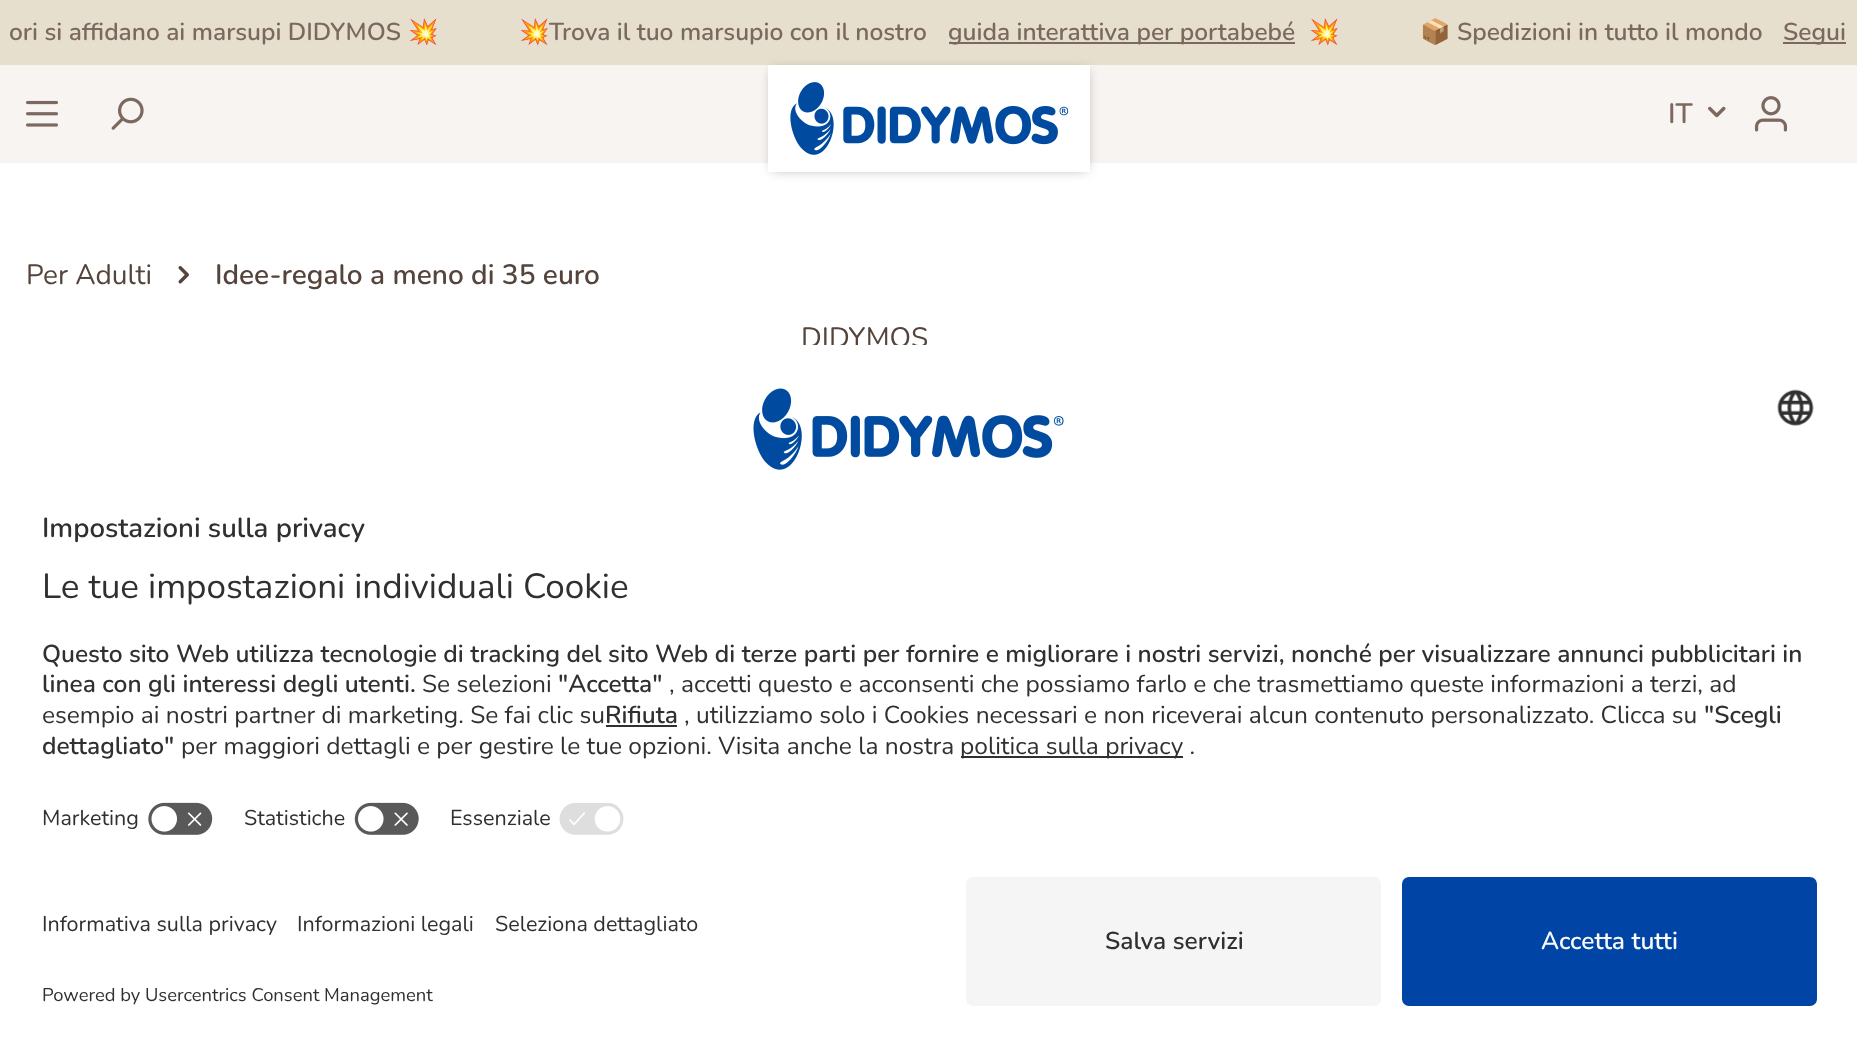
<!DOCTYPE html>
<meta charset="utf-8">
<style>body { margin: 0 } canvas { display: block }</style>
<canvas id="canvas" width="1857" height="1047"></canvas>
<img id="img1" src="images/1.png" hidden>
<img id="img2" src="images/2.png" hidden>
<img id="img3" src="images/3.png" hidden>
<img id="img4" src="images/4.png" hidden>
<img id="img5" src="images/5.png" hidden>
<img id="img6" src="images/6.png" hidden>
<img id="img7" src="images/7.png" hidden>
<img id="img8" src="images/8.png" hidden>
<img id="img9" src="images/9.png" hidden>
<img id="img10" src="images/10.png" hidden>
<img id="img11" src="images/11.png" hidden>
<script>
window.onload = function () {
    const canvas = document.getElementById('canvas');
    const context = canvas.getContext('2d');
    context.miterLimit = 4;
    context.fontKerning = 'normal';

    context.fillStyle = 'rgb(255, 255, 255)';
    context.fillRect(0, 0, 1857, 1047);
    context.fillStyle = 'rgb(231, 223, 206)';
    context.fillRect(0, 0, 1857, 65);
    context.fillStyle = 'rgb(123, 105, 96)';
    context.fillRect(949, 42, 346, 2);
    context.fillRect(1783, 42, 63, 2);
    context.fillStyle = 'rgb(248, 244, 241)';
    context.fillRect(0, 65, 1857, 98);
    context.fillStyle = 'rgba(0, 0, 0, 0.3)';
    context.filter = 'blur(6px)';
    context.beginPath();
    context.rect(772, 70, 315, 100);
    context.fill();
    context.filter = 'none';
    context.fillStyle = 'rgb(255, 255, 255)';
    context.fillRect(768, 65, 322, 107);
    context.drawImage(document.getElementById('img1'), 790, 82, 279, 73);
    context.drawImage(document.getElementById('img2'), 26, 100, 32, 27);
    context.drawImage(document.getElementById('img3'), 111, 97, 33, 33);
    context.drawImage(document.getElementById('img4'), 1708, 106, 18, 12);
    context.drawImage(document.getElementById('img5'), 1754, 96, 34, 36);
    context.drawImage(document.getElementById('img6'), 178, 266, 11, 18);
    context.fillStyle = 'rgb(245, 245, 245)';
    context.beginPath();
    context.roundRect(966, 877, 415, 129, 7);
    context.fill();
    context.fillStyle = 'rgb(0, 69, 165)';
    context.beginPath();
    context.roundRect(1402, 877, 415, 129, 7);
    context.fill();
    context.font = '600 24.5px Nunito';
    context.fillStyle = 'rgb(123, 105, 96)';
    context.fillText('ori si affidano ai marsupi DIDYMOS', 9, 40);
    context.font = 'bold 24.5px Noto Color Emoji';
    context.fillText('💥', 408, 40);
    context.fillText('💥', 519, 40);
    context.font = '600 24.5px Nunito';
    context.fillText('Trova il tuo marsupio con il nostro', 549, 40);
    context.fillText('guida interattiva per portabebé', 948, 40);
    context.font = 'bold 24.5px Noto Color Emoji';
    context.fillText('💥', 1309, 40);
    context.fillText('📦', 1420, 40);
    context.font = '600 24.5px Nunito';
    context.fillText('Spedizioni in tutto il mondo', 1457, 40);
    context.fillText('Segui', 1783, 40);
    context.font = '600 28px Nunito';
    context.fillText('IT', 1668, 123);
    context.font = '28px Nunito';
    context.fillStyle = 'rgb(84, 68, 60)';
    context.fillText('Per Adulti', 26, 284);
    context.font = '600 28px Nunito';
    context.fillText('Idee-regalo a meno di 35 euro', 215, 284);
    context.font = '28px Nunito';
    context.fillText('DIDYMOS', 801, 347);
    context.save();
    context.beginPath();
    context.moveTo(14, 343);
    context.lineTo(1845, 343);
    context.bezierCurveTo(1852.5, 343, 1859, 349.5, 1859, 357);
    context.lineTo(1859, 863);
    context.lineTo(0, 863);
    context.lineTo(0, 357);
    context.bezierCurveTo(0, 349.5, 6.5, 343, 14, 343);
    context.closePath();
    context.clip();
    context.fillStyle = 'rgb(255, 255, 255)';
    context.fillRect(0, 345, 1857, 518);
    context.restore();
    context.drawImage(document.getElementById('img7'), 753, 388, 311, 82);
    context.drawImage(document.getElementById('img8'), 1777, 389, 37, 37);
    context.font = '600 27.5px Nunito';
    context.fillStyle = 'rgb(48, 48, 48)';
    context.fillText('Impostazioni sulla privacy', 42, 537);
    context.font = '35px Nunito';
    context.fillText('Le tue impostazioni individuali Cookie', 42, 598);
    context.font = '600 24.5px Nunito';
    context.fillText('Questo sito Web utilizza tecnologie di tracking del sito Web di terze parti per fornire e migliorare i nostri servizi, nonché per visualizzare annunci pubblicitari in', 42, 662);
    context.fillText('linea con gli interessi degli utenti.', 42, 692);
    context.font = '24.5px Nunito';
    context.fillText('Se selezioni', 422, 692);
    context.font = '600 24.5px Nunito';
    context.fillText('"Accetta"', 558, 692);
    context.font = '24.5px Nunito';
    context.fillText(', accetti questo e acconsenti che possiamo farlo e che trasmettiamo queste informazioni a terzi, ad', 669, 692);
    context.fillText('esempio ai nostri partner di marketing. Se fai clic su', 42, 723);
    context.font = '600 24.5px Nunito';
    context.fillText('Rifiuta', 605, 723);
    context.fillRect(606, 725, 71, 2);
    context.font = '24.5px Nunito';
    context.fillText(', utilizziamo solo i Cookies necessari e non riceverai alcun contenuto personalizzato. Clicca su', 684, 723);
    context.font = '600 24.5px Nunito';
    context.fillText('"Scegli', 1704, 723);
    context.fillText('dettagliato"', 42, 754);
    context.font = '24.5px Nunito';
    context.fillText('per maggiori dettagli e per gestire le tue opzioni. Visita anche la nostra', 181, 754);
    context.fillRect(961, 756, 222, 2);
    context.fillText('politica sulla privacy .', 960, 754);
    context.font = '21.5px Nunito';
    context.fillText('Marketing', 42, 825);
    context.drawImage(document.getElementById('img9'), 148, 802, 65, 33);
    context.fillText('Statistiche', 244, 825);
    context.drawImage(document.getElementById('img10'), 354, 802, 65, 33);
    context.fillText('Essenziale', 450, 825);
    context.drawImage(document.getElementById('img11'), 559, 803, 65, 32);
    context.fillText('Informativa sulla privacy', 42, 931);
    context.fillText('Informazioni legali', 297, 931);
    context.fillText('Seleziona dettagliato', 495, 931);
    context.font = '18.4px Nunito';
    context.fillText('Powered by Usercentrics Consent Management', 42, 1001);
    context.font = '600 24.5px Nunito';
    context.fillText('Salva servizi', 1105, 949);
    context.fillStyle = 'rgb(250, 250, 250)';
    context.fillText('Accetta tutti', 1541, 949);
};
</script>
